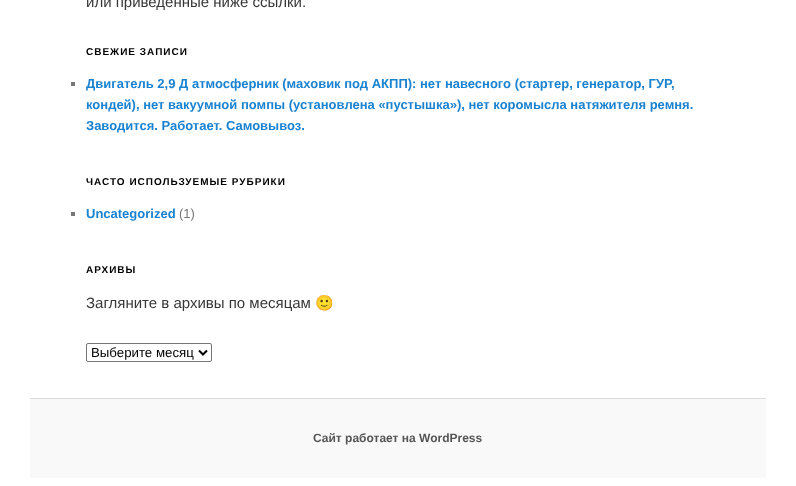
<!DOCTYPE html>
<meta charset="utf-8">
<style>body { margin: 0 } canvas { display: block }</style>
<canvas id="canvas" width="796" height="486"></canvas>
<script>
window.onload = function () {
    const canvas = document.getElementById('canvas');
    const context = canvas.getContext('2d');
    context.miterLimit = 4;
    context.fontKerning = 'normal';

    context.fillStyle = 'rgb(255, 255, 255)';
    context.fillRect(0, 0, 796, 486);
    context.fillStyle = 'rgb(119, 119, 119)';
    context.fillRect(71, 82, 4, 4);
    context.fillRect(71, 212, 4, 4);
    context.beginPath();
    context.roundRect(86.5, 343.5, 125, 18, 1.5);
    context.strokeStyle = 'rgb(118, 118, 118)';
    context.stroke();
    context.beginPath();
    context.moveTo(199, 350.5);
    context.lineTo(203, 354.5);
    context.lineTo(207, 350.5);
    context.strokeStyle = 'rgb(0, 0, 0)';
    context.lineWidth = 2;
    context.stroke();
    context.fillStyle = 'rgb(249, 249, 249)';
    context.fillRect(30, 399, 736, 79);
    context.fillStyle = 'rgb(221, 221, 221)';
    context.fillRect(30, 398, 736, 1);
    context.font = '15px Liberation Sans';
    context.fillStyle = 'rgb(55, 55, 55)';
    context.fillText('или приведённые ниже ссылки.', 86, 7);
    context.letterSpacing = '1px';
    context.font = 'bold 10px Liberation Sans';
    context.fillStyle = 'rgb(0, 0, 0)';
    context.fillText('СВЕЖИЕ ЗАПИСИ', 86, 55);
    context.letterSpacing = '0px';
    context.font = 'bold 13px Liberation Sans';
    context.fillStyle = 'rgb(25, 130, 209)';
    context.fillText('Двигатель 2,9 Д атмосферник (маховик под АКПП): нет навесного (стартер, генератор, ГУР,', 86, 88);
    context.fillText('кондей), нет вакуумной помпы (установлена «пустышка»), нет коромысла натяжителя ремня.', 86, 109);
    context.fillText('Заводится. Работает. Самовывоз.', 86, 130);
    context.letterSpacing = '1px';
    context.font = 'bold 10px Liberation Sans';
    context.fillStyle = 'rgb(0, 0, 0)';
    context.fillText('ЧАСТО ИСПОЛЬЗУЕМЫЕ РУБРИКИ', 86, 185);
    context.letterSpacing = '0px';
    context.font = 'bold 13px Liberation Sans';
    context.fillStyle = 'rgb(25, 130, 209)';
    context.fillText('Uncategorized', 86, 218);
    context.font = '13px Liberation Sans';
    context.fillStyle = 'rgb(119, 119, 119)';
    context.fillText('(1)', 179, 218);
    context.letterSpacing = '1px';
    context.font = 'bold 10px Liberation Sans';
    context.fillStyle = 'rgb(0, 0, 0)';
    context.fillText('АРХИВЫ', 86, 273);
    context.letterSpacing = '0px';
    context.font = '15px Liberation Sans';
    context.fillStyle = 'rgb(55, 55, 55)';
    context.fillText('Загляните в архивы по месяцам', 86, 308);
    context.font = '15px Noto Color Emoji';
    context.fillText('🙂', 315, 308);
    context.font = '13.25px Liberation Sans';
    context.fillStyle = 'rgb(0, 0, 0)';
    context.fillText('Выберите месяц', 91, 357);
    context.font = 'bold 12px Liberation Sans';
    context.fillStyle = 'rgb(85, 85, 85)';
    context.fillText('Сайт работает на WordPress', 313, 442);
};
</script>
